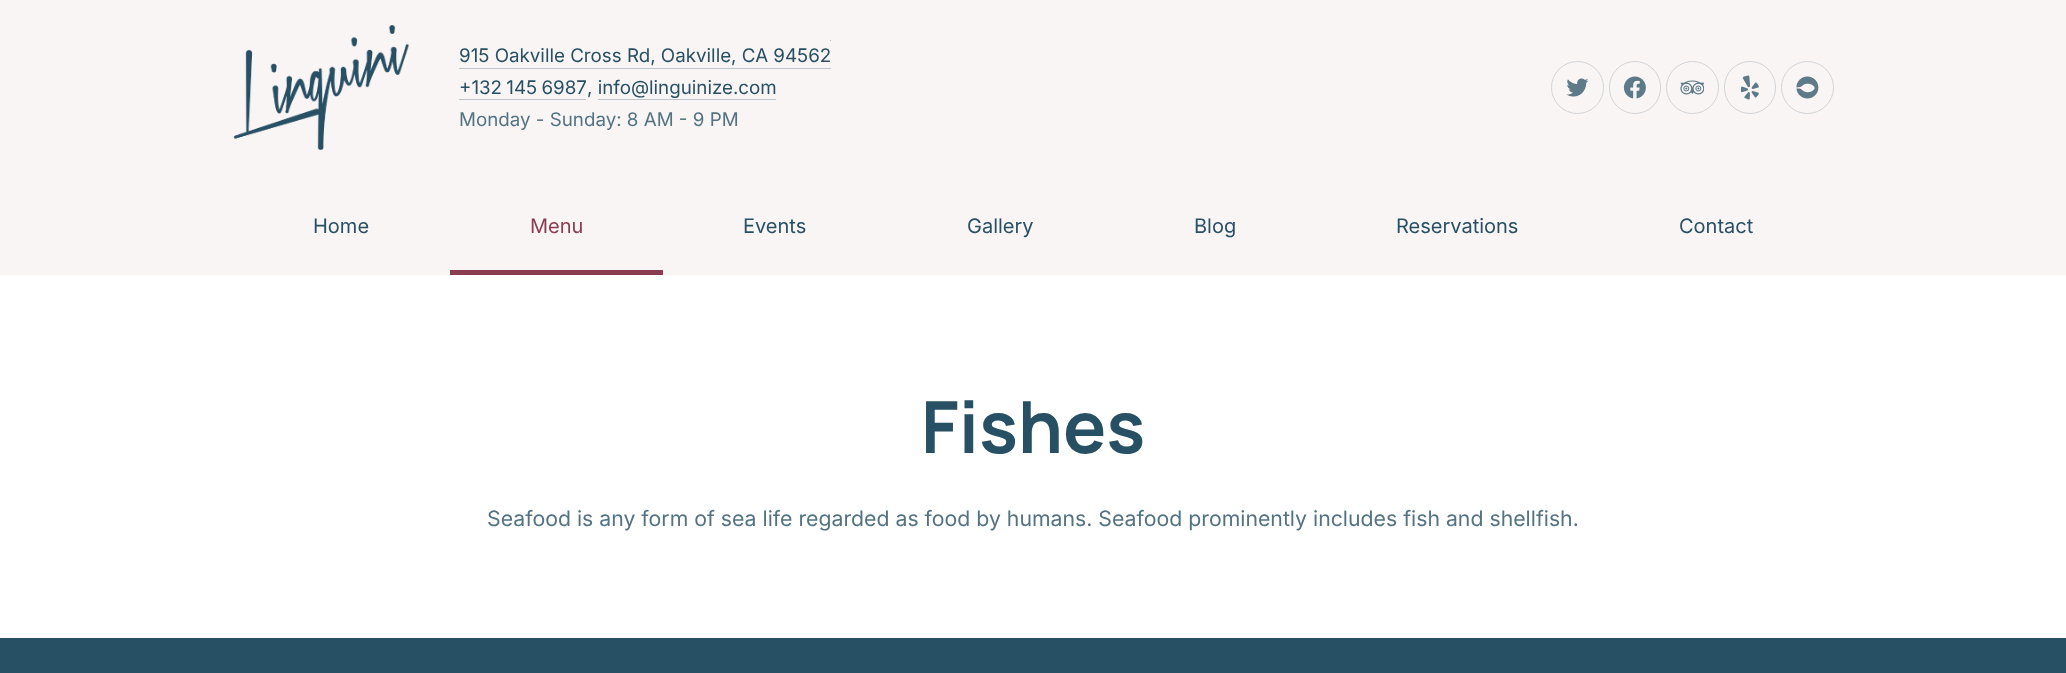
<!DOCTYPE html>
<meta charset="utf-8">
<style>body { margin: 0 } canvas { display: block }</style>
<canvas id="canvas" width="2066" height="673"></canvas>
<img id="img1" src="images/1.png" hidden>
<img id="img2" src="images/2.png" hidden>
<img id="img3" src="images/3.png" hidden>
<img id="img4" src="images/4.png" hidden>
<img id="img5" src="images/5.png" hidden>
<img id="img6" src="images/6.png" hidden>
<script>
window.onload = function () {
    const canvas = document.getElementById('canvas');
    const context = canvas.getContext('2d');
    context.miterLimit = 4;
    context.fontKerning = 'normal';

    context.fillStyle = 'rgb(40, 80, 100)';
    context.fillRect(0, 0, 2066, 673);
    context.fillStyle = 'rgb(250, 245, 245)';
    context.fillRect(0, 0, 2066, 275);
    context.drawImage(document.getElementById('img1'), 233, 25, 177, 125);
    context.fillStyle = 'rgb(187, 196, 202)';
    context.fillRect(459, 68, 372, 1);
    context.fillRect(830, 40, 1, 1);
    context.fillRect(459, 99, 127, 1);
    context.fillRect(598, 99, 178, 1);
    context.beginPath();
    context.arc(1577.5, 87.5, 26, 0, 2 * Math.PI);
    context.strokeStyle = 'rgb(208, 212, 216)';
    context.stroke();
    context.drawImage(document.getElementById('img2'), 1566, 78, 23, 19);
    context.beginPath();
    context.roundRect(1609.5, 61.5, 51, 52, 25.5);
    context.stroke();
    context.drawImage(document.getElementById('img3'), 1623, 76, 23, 23);
    context.beginPath();
    context.arc(1692.5, 87.5, 26, 0, 2 * Math.PI);
    context.stroke();
    context.drawImage(document.getElementById('img4'), 1680, 80, 24, 15);
    context.beginPath();
    context.roundRect(1724.5, 61.5, 51, 52, 25.5);
    context.stroke();
    context.drawImage(document.getElementById('img5'), 1740, 75, 19, 25);
    context.beginPath();
    context.arc(1807.5, 87.5, 26, 0, 2 * Math.PI);
    context.stroke();
    context.drawImage(document.getElementById('img6'), 1796, 76, 23, 23);
    context.fillStyle = 'rgb(140, 60, 80)';
    context.fillRect(450, 270, 213, 5);
    context.fillStyle = 'rgb(255, 255, 255)';
    context.fillRect(0, 275, 2066, 363);
    context.font = '18.75px Inter';
    context.fillStyle = 'rgb(40, 80, 100)';
    context.fillText('915 Oakville Cross Rd, Oakville, CA 94562', 459, 62);
    context.wordSpacing = '-1px';
    context.fillText('+132 145 6987', 459, 94);
    context.wordSpacing = '0px';
    context.fillText(', info@linguinize.com', 587, 94);
    context.fillStyle = 'rgb(83, 115, 131)';
    context.fillText('Monday - Sunday: 8 AM - 9 PM', 459, 126);
    context.font = '20px Inter';
    context.fillStyle = 'rgb(40, 80, 100)';
    context.fillText('Home', 313, 233);
    context.fillStyle = 'rgb(140, 60, 80)';
    context.fillText('Menu', 530, 233);
    context.fillStyle = 'rgb(40, 80, 100)';
    context.fillText('Events', 743, 233);
    context.fillText('Gallery', 967, 233);
    context.fillText('Blog', 1194, 233);
    context.fillText('Reservations', 1396, 233);
    context.fillText('Contact', 1679, 233);
    context.font = 'bold 72px Manrope';
    context.fillText('Fishes', 921, 453);
    context.font = '21.25px Inter';
    context.fillStyle = 'rgb(83, 115, 131)';
    context.fillText('Seafood is any form of sea life regarded as food by humans. Seafood prominently includes fish and shellfish.', 487, 526);
};
</script>
